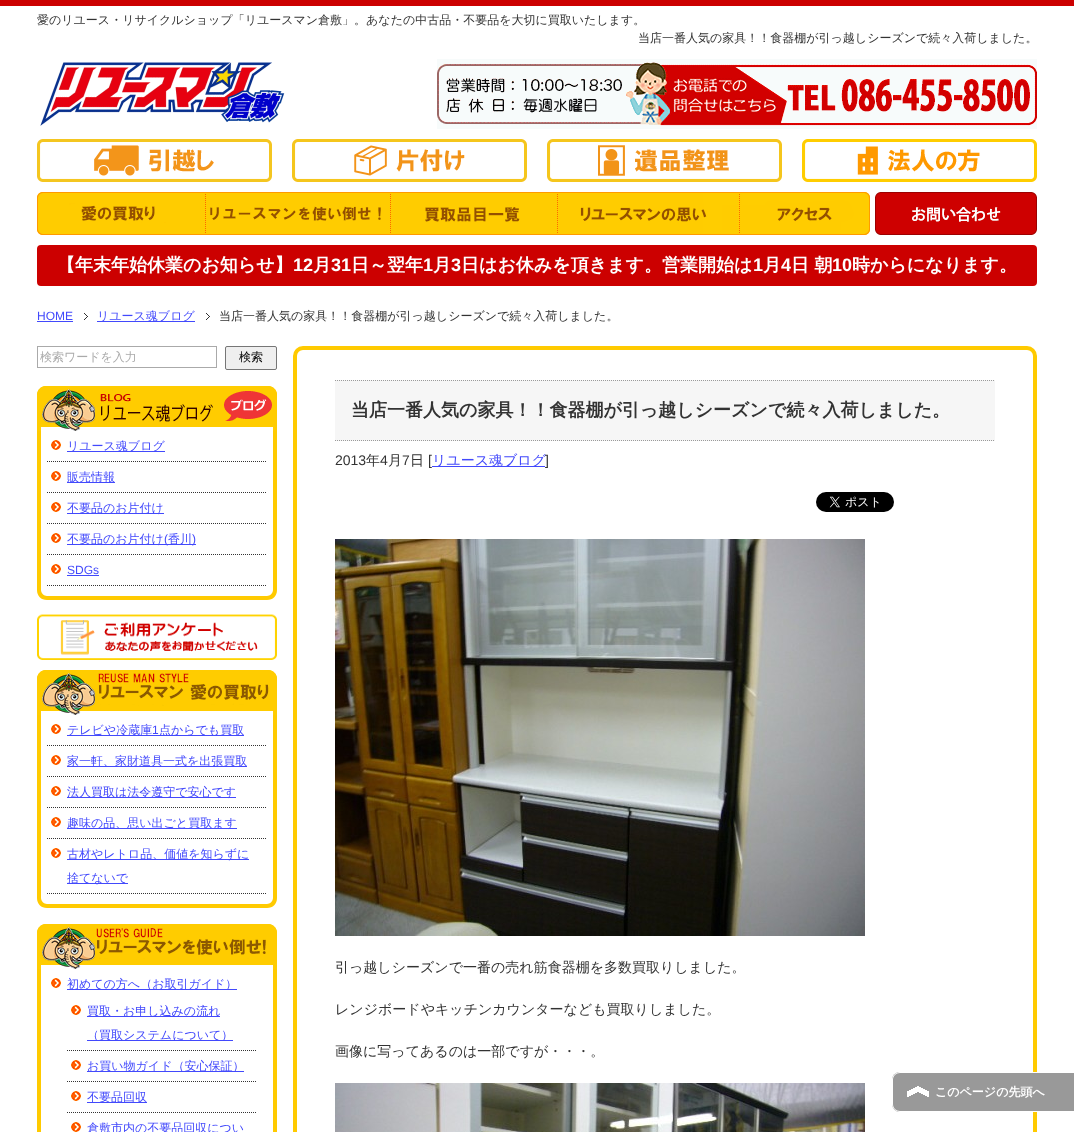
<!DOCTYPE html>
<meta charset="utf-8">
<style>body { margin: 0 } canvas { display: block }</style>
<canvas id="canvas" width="1074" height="1132"></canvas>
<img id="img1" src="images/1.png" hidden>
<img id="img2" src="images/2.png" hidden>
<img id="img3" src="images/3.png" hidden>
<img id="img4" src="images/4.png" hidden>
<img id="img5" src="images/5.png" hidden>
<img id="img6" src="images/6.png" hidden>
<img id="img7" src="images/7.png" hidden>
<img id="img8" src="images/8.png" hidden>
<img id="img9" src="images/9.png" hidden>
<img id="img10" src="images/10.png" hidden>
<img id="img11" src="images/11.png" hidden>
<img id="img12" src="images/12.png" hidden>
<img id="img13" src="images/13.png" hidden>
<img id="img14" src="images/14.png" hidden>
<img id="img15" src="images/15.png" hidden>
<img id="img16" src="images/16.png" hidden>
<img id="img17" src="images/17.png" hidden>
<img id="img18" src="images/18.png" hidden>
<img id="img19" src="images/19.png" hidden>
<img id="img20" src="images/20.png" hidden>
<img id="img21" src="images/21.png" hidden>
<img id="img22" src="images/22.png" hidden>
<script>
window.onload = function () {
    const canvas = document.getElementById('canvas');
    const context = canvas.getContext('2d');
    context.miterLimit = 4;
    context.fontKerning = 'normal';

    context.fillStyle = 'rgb(255, 255, 255)';
    context.fillRect(0, 0, 1074, 1132);
    context.fillStyle = 'rgb(204, 0, 0)';
    context.fillRect(0, 0, 1074, 6);
    context.drawImage(document.getElementById('img1'), 40, 62, 245, 64);
    context.drawImage(document.getElementById('img2'), 437, 59, 600, 70);
    context.drawImage(document.getElementById('img3'), 37, 139, 235, 43);
    context.drawImage(document.getElementById('img4'), 292, 139, 235, 43);
    context.drawImage(document.getElementById('img5'), 547, 139, 235, 43);
    context.drawImage(document.getElementById('img6'), 802, 139, 235, 43);
    context.drawImage(document.getElementById('img7'), 37, 192, 169, 43);
    context.drawImage(document.getElementById('img8'), 206, 192, 185, 43);
    context.drawImage(document.getElementById('img9'), 391, 192, 167, 43);
    context.drawImage(document.getElementById('img10'), 558, 192, 182, 43);
    context.drawImage(document.getElementById('img11'), 740, 192, 130, 43);
    context.drawImage(document.getElementById('img12'), 875, 192, 162, 43);
    context.beginPath();
    context.roundRect(38, 246, 998, 39, 3);
    context.fill();
    context.strokeStyle = 'rgb(204, 0, 0)';
    context.lineWidth = 2;
    context.stroke();
    context.fillStyle = 'rgb(66, 73, 252)';
    context.fillRect(37, 321, 36, 1);
    context.drawImage(document.getElementById('img13'), 84, 313, 4, 7);
    context.fillRect(97, 321, 98, 1);
    context.drawImage(document.getElementById('img13'), 206, 313, 4, 7);
    context.strokeStyle = 'rgb(170, 170, 170)';
    context.lineWidth = 1;
    context.strokeRect(37.5, 346.5, 179, 21);
    context.fillStyle = 'rgb(239, 239, 239)';
    context.beginPath();
    context.roundRect(225.5, 346.5, 51, 23, 1.5);
    context.fill();
    context.strokeStyle = 'rgb(118, 118, 118)';
    context.stroke();
    context.drawImage(document.getElementById('img14'), 37, 386, 240, 45);
    context.fillStyle = 'rgb(255, 202, 0)';
    context.beginPath();
    context.moveTo(37, 431);
    context.lineTo(277, 431);
    context.lineTo(277, 590);
    context.bezierCurveTo(277, 596, 273, 600, 267, 600);
    context.lineTo(47, 600);
    context.bezierCurveTo(41, 600, 37, 596, 37, 590);
    context.closePath();
    context.moveTo(41, 431);
    context.lineTo(273, 431);
    context.lineTo(273, 590);
    context.bezierCurveTo(273, 593, 270, 596, 267, 596);
    context.lineTo(47, 596);
    context.bezierCurveTo(44, 596, 41, 593, 41, 590);
    context.closePath();
    context.fill('evenodd');
    context.drawImage(document.getElementById('img15'), 51, 440, 10, 10);
    context.beginPath();
    context.moveTo(47, 461.5);
    context.lineTo(267, 461.5);
    context.strokeStyle = 'rgb(51, 51, 51)';
    context.setLineDash([1, 1]);
    context.stroke();
    context.fillStyle = 'rgb(66, 73, 252)';
    context.fillRect(67, 451, 98, 1);
    context.drawImage(document.getElementById('img15'), 51, 471, 10, 10);
    context.beginPath();
    context.moveTo(47, 492.5);
    context.lineTo(267, 492.5);
    context.stroke();
    context.fillRect(67, 482, 48, 1);
    context.drawImage(document.getElementById('img15'), 51, 502, 10, 10);
    context.beginPath();
    context.moveTo(47, 523.5);
    context.lineTo(267, 523.5);
    context.stroke();
    context.fillRect(67, 513, 97, 1);
    context.drawImage(document.getElementById('img15'), 51, 533, 10, 10);
    context.beginPath();
    context.moveTo(47, 554.5);
    context.lineTo(267, 554.5);
    context.stroke();
    context.fillRect(67, 544, 129, 1);
    context.drawImage(document.getElementById('img15'), 51, 564, 10, 10);
    context.beginPath();
    context.moveTo(47, 585.5);
    context.lineTo(267, 585.5);
    context.stroke();
    context.fillRect(67, 575, 32, 1);
    context.drawImage(document.getElementById('img16'), 37, 614, 240, 46);
    context.drawImage(document.getElementById('img17'), 37, 670, 240, 45);
    context.fillStyle = 'rgb(255, 202, 0)';
    context.beginPath();
    context.moveTo(37, 715);
    context.lineTo(277, 715);
    context.lineTo(277, 898);
    context.bezierCurveTo(277, 904, 273, 908, 267, 908);
    context.lineTo(47, 908);
    context.bezierCurveTo(41, 908, 37, 904, 37, 898);
    context.closePath();
    context.moveTo(41, 715);
    context.lineTo(273, 715);
    context.lineTo(273, 898);
    context.bezierCurveTo(273, 901, 270, 904, 267, 904);
    context.lineTo(47, 904);
    context.bezierCurveTo(44, 904, 41, 901, 41, 898);
    context.closePath();
    context.fill('evenodd');
    context.drawImage(document.getElementById('img15'), 51, 724, 10, 10);
    context.beginPath();
    context.moveTo(47, 745.5);
    context.lineTo(267, 745.5);
    context.stroke();
    context.fillStyle = 'rgb(66, 73, 252)';
    context.fillRect(67, 735, 177, 1);
    context.drawImage(document.getElementById('img15'), 51, 755, 10, 10);
    context.beginPath();
    context.moveTo(47, 776.5);
    context.lineTo(267, 776.5);
    context.stroke();
    context.fillRect(67, 766, 180, 1);
    context.drawImage(document.getElementById('img15'), 51, 786, 10, 10);
    context.beginPath();
    context.moveTo(47, 807.5);
    context.lineTo(267, 807.5);
    context.stroke();
    context.fillRect(67, 797, 169, 1);
    context.drawImage(document.getElementById('img15'), 51, 817, 10, 10);
    context.beginPath();
    context.moveTo(47, 838.5);
    context.lineTo(267, 838.5);
    context.stroke();
    context.fillRect(67, 828, 170, 1);
    context.drawImage(document.getElementById('img15'), 51, 848, 10, 10);
    context.beginPath();
    context.moveTo(47, 893.5);
    context.lineTo(267, 893.5);
    context.stroke();
    context.fillRect(67, 859, 182, 1);
    context.fillRect(67, 883, 61, 1);
    context.drawImage(document.getElementById('img18'), 37, 924, 240, 45);
    context.fillStyle = 'rgb(255, 202, 0)';
    context.beginPath();
    context.moveTo(37, 969);
    context.lineTo(277, 969);
    context.lineTo(277, 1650);
    context.bezierCurveTo(277, 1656, 273, 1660, 267, 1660);
    context.lineTo(47, 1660);
    context.bezierCurveTo(41, 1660, 37, 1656, 37, 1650);
    context.closePath();
    context.moveTo(41, 969);
    context.lineTo(273, 969);
    context.lineTo(273, 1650);
    context.bezierCurveTo(273, 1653, 270, 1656, 267, 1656);
    context.lineTo(47, 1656);
    context.bezierCurveTo(44, 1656, 41, 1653, 41, 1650);
    context.closePath();
    context.fill('evenodd');
    context.drawImage(document.getElementById('img15'), 51, 978, 10, 10);
    context.fillStyle = 'rgb(66, 73, 252)';
    context.fillRect(67, 989, 170, 1);
    context.drawImage(document.getElementById('img15'), 71, 1005, 10, 10);
    context.beginPath();
    context.moveTo(67, 1050.5);
    context.lineTo(257, 1050.5);
    context.stroke();
    context.fillRect(87, 1016, 133, 1);
    context.fillRect(87, 1040, 146, 1);
    context.drawImage(document.getElementById('img15'), 71, 1060, 10, 10);
    context.beginPath();
    context.moveTo(67, 1081.5);
    context.lineTo(257, 1081.5);
    context.stroke();
    context.fillRect(87, 1071, 157, 1);
    context.drawImage(document.getElementById('img15'), 71, 1091, 10, 10);
    context.beginPath();
    context.moveTo(67, 1112.5);
    context.lineTo(257, 1112.5);
    context.stroke();
    context.fillRect(87, 1102, 60, 1);
    context.drawImage(document.getElementById('img15'), 71, 1122, 10, 10);
    context.beginPath();
    context.roundRect(295, 348, 740, 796, 8);
    context.strokeStyle = 'rgb(255, 202, 0)';
    context.lineWidth = 4;
    context.setLineDash([]);
    context.stroke();
    context.fillStyle = 'rgb(246, 246, 246)';
    context.fillRect(335, 380, 660, 61);
    context.beginPath();
    context.moveTo(335, 380.5);
    context.lineTo(995, 380.5);
    context.strokeStyle = 'rgb(154, 154, 154)';
    context.lineWidth = 1;
    context.setLineDash([1, 1]);
    context.stroke();
    context.beginPath();
    context.moveTo(335, 440.5);
    context.lineTo(995, 440.5);
    context.stroke();
    context.fillStyle = 'rgb(66, 73, 252)';
    context.fillRect(432, 466, 113, 1);
    context.drawImage(document.getElementById('img19'), 816, 492, 78, 20);
    context.drawImage(document.getElementById('img20'), 335, 539, 530, 397);
    context.drawImage(document.getElementById('img21'), 335, 1083, 530, 49);
    context.fillStyle = 'rgb(153, 153, 153)';
    context.beginPath();
    context.roundRect(892, 1072, 182, 40, [8, 0, 0, 8]);
    context.fill();
    context.drawImage(document.getElementById('img22'), 907, 1086, 22, 11);
    context.fillStyle = 'rgb(255, 255, 255)';
    context.beginPath();
    context.moveTo(900, 1072);
    context.lineTo(1074, 1072);
    context.lineTo(1074, 1112);
    context.lineTo(900, 1112);
    context.bezierCurveTo(896, 1112, 892, 1108, 892, 1104);
    context.lineTo(892, 1080);
    context.bezierCurveTo(892, 1076, 896, 1072, 900, 1072);
    context.closePath();
    context.moveTo(900, 1073);
    context.lineTo(1074, 1073);
    context.lineTo(1074, 1111);
    context.lineTo(900, 1111);
    context.bezierCurveTo(896, 1111, 893, 1108, 893, 1104);
    context.lineTo(893, 1080);
    context.bezierCurveTo(893, 1076, 896, 1073, 900, 1073);
    context.closePath();
    context.fill('evenodd');
    context.font = '500 12px WenQuanYi Zen Hei';
    context.fillStyle = 'rgb(51, 51, 51)';
    context.fillText('愛のリユース・リサイクルショップ「リユースマン倉敷」。あなたの中古品・不要品を大切に買取いたします。', 37, 24);
    context.fillText('当店一番人気の家具！！食器棚が引っ越しシーズンで続々入荷しました。', 638, 42);
    context.font = 'bold 18px WenQuanYi Zen Hei';
    context.fillStyle = 'rgb(255, 255, 255)';
    context.fillText('【年末年始休業のお知らせ】', 57, 271);
    context.font = 'bold 18px Liberation Sans';
    context.fillText('12', 293, 271);
    context.font = 'bold 18px WenQuanYi Zen Hei';
    context.fillText('月', 313, 271);
    context.font = 'bold 18px Liberation Sans';
    context.fillText('31', 331, 271);
    context.font = 'bold 18px WenQuanYi Zen Hei';
    context.fillText('日～翌年', 351, 271);
    context.font = 'bold 18px Liberation Sans';
    context.fillText('1', 423, 271);
    context.font = 'bold 18px WenQuanYi Zen Hei';
    context.fillText('月', 433, 271);
    context.font = 'bold 18px Liberation Sans';
    context.fillText('3', 451, 271);
    context.font = 'bold 18px WenQuanYi Zen Hei';
    context.fillText('日はお休みを頂きます。営業開始は', 461, 271);
    context.font = 'bold 18px Liberation Sans';
    context.fillText('1', 753, 271);
    context.font = 'bold 18px WenQuanYi Zen Hei';
    context.fillText('月', 763, 271);
    context.font = 'bold 18px Liberation Sans';
    context.fillText('4', 781, 271);
    context.font = 'bold 18px WenQuanYi Zen Hei';
    context.fillText('日 朝', 791, 271);
    context.font = 'bold 18px Liberation Sans';
    context.fillText('10', 832, 271);
    context.font = 'bold 18px WenQuanYi Zen Hei';
    context.fillText('時からになります。', 852, 271);
    context.font = '12px Liberation Sans';
    context.fillStyle = 'rgb(66, 73, 252)';
    context.fillText('HOME', 37, 320);
    context.font = '500 12px WenQuanYi Zen Hei';
    context.fillText('リユース魂ブログ', 97, 320);
    context.fillStyle = 'rgb(51, 51, 51)';
    context.fillText('当店一番人気の家具！！食器棚が引っ越しシーズンで続々入荷しました。', 219, 320);
    context.fillStyle = 'rgb(170, 170, 170)';
    context.fillText('検索ワードを入力', 40, 361);
    context.fillStyle = 'rgb(0, 0, 0)';
    context.fillText('検索', 239, 361);
    context.fillStyle = 'rgb(66, 73, 252)';
    context.fillText('リユース魂ブログ', 67, 450);
    context.fillText('販売情報', 67, 481);
    context.fillText('不要品のお片付け', 67, 512);
    context.fillText('不要品のお片付け', 67, 543);
    context.font = '12px Liberation Sans';
    context.fillText('(', 164, 543);
    context.font = '500 12px WenQuanYi Zen Hei';
    context.fillText('香川', 168, 543);
    context.font = '12px Liberation Sans';
    context.fillText(')', 192, 543);
    context.fillText('SDGs', 67, 574);
    context.font = '500 12px WenQuanYi Zen Hei';
    context.fillText('テレビや冷蔵庫', 67, 734);
    context.font = '12px Liberation Sans';
    context.fillText('1', 152, 734);
    context.font = '500 12px WenQuanYi Zen Hei';
    context.fillText('点からでも買取', 159, 734);
    context.fillText('家一軒、家財道具一式を出張買取', 67, 765);
    context.fillText('法人買取は法令遵守で安心です', 67, 796);
    context.fillText('趣味の品、思い出ごと買取ます', 67, 827);
    context.fillText('古材やレトロ品、価値を知らずに', 67, 858);
    context.fillText('捨てないで', 67, 882);
    context.fillText('初めての方へ（お取引ガイド）', 67, 988);
    context.fillText('買取・お申し込みの流れ', 87, 1015);
    context.fillText('（買取システムについて）', 87, 1039);
    context.fillText('お買い物ガイド（安心保証）', 87, 1070);
    context.fillText('不要品回収', 87, 1101);
    context.fillText('倉敷市内の不要品回収につい', 87, 1132);
    context.font = 'bold 18px WenQuanYi Zen Hei';
    context.fillStyle = 'rgb(51, 51, 51)';
    context.fillText('当店一番人気の家具！！食器棚が引っ越しシーズンで続々入荷しました。', 351, 416);
    context.font = '14px Liberation Sans';
    context.fillText('2013', 335, 465);
    context.font = '500 14px WenQuanYi Zen Hei';
    context.fillText('年', 366, 465);
    context.font = '14px Liberation Sans';
    context.fillText('4', 380, 465);
    context.font = '500 14px WenQuanYi Zen Hei';
    context.fillText('月', 388, 465);
    context.font = '14px Liberation Sans';
    context.fillText('7', 402, 465);
    context.font = '500 14px WenQuanYi Zen Hei';
    context.fillText('日', 410, 465);
    context.font = '14px Liberation Sans';
    context.fillText('[', 428, 465);
    context.font = '500 14px WenQuanYi Zen Hei';
    context.fillStyle = 'rgb(66, 73, 252)';
    context.fillText('リユース魂ブログ', 432, 465);
    context.font = '14px Liberation Sans';
    context.fillStyle = 'rgb(51, 51, 51)';
    context.fillText(']', 545, 465);
    context.font = '500 14px WenQuanYi Zen Hei';
    context.fillText('引っ越しシーズンで一番の売れ筋食器棚を多数買取りしました。', 335, 972);
    context.fillText('レンジボードやキッチンカウンターなども買取りしました。', 335, 1014);
    context.fillText('画像に写ってあるのは一部ですが・・・。', 335, 1056);
    context.font = 'bold 12px WenQuanYi Zen Hei';
    context.fillStyle = 'rgb(255, 255, 255)';
    context.fillText('このページの先頭へ', 935, 1096);
};
</script>
